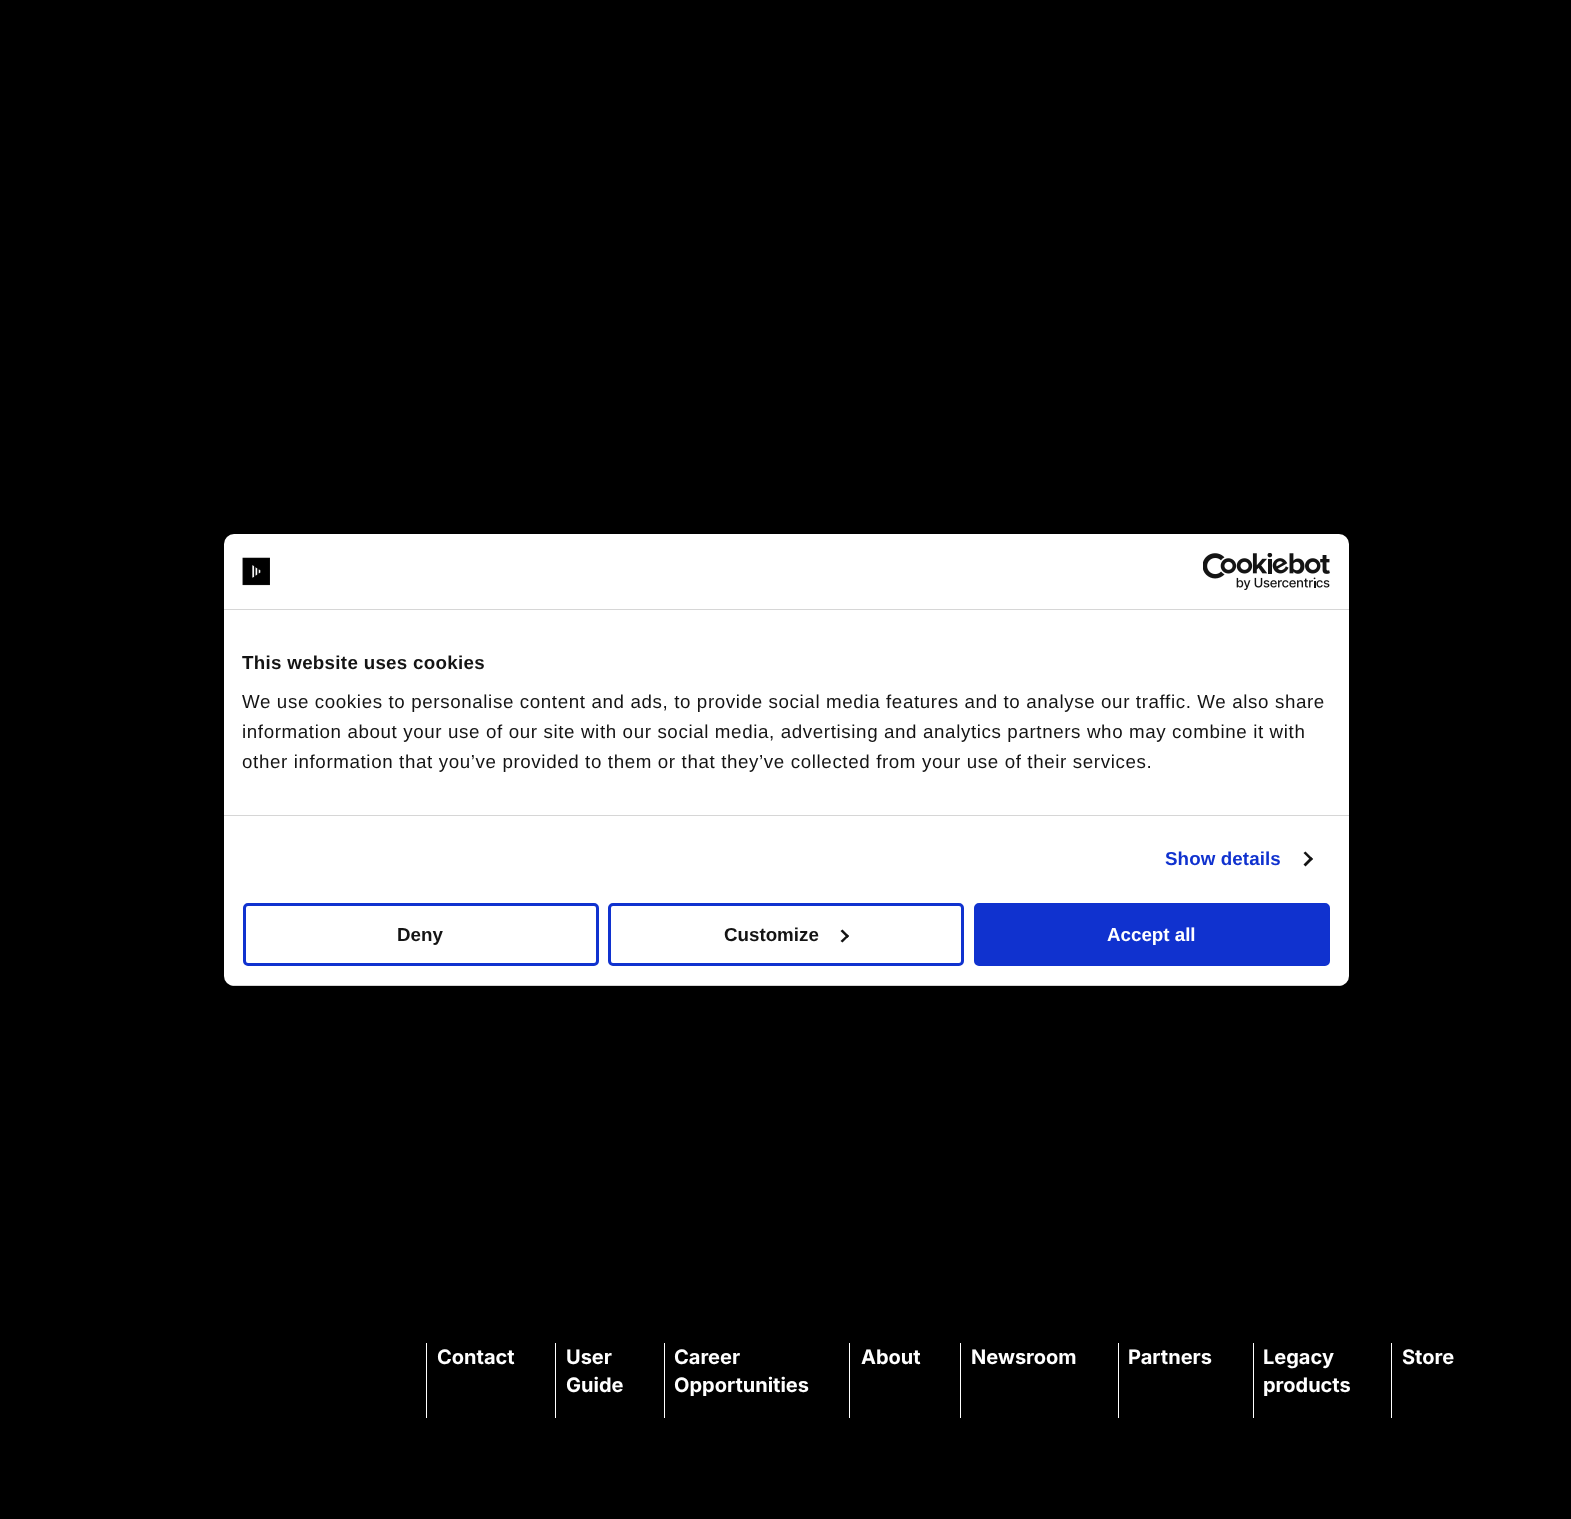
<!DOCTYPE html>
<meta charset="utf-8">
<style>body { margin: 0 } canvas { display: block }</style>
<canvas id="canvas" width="1571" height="1519"></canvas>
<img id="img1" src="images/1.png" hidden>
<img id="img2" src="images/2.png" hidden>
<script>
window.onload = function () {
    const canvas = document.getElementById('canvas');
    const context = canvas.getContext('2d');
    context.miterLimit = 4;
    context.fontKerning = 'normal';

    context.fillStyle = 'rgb(0, 0, 0)';
    context.fillRect(0, 0, 1571, 1519);
    context.fillStyle = 'rgb(255, 255, 255)';
    context.beginPath();
    context.roundRect(224, 534, 1125, 452, 10);
    context.fill();
    context.fillStyle = 'rgb(214, 214, 214)';
    context.fillRect(224, 609, 1125, 1);
    context.drawImage(document.getElementById('img1'), 242, 557, 28, 29);
    context.drawImage(document.getElementById('img2'), 1203, 553, 127, 37);
    context.fillRect(224, 815, 1125, 1);
    context.fillStyle = 'rgb(20, 20, 20)';
    context.beginPath();
    context.moveTo(1305.5, 851.5);
    context.lineTo(1313, 859);
    context.lineTo(1311, 860.5);
    context.lineTo(1303.5, 853);
    context.closePath();
    context.fill();
    context.beginPath();
    context.moveTo(1311, 857);
    context.lineTo(1313, 859);
    context.lineTo(1305.5, 866.5);
    context.lineTo(1303.5, 864.5);
    context.closePath();
    context.fill();
    context.save();
    context.beginPath();
    context.roundRect(224, 534, 1125, 452, 10);
    context.clip();
    context.fillStyle = 'rgb(214, 214, 214)';
    context.fillRect(224, 985, 1125, 1);
    context.restore();
    context.beginPath();
    context.roundRect(244.5, 904.5, 353, 60, 3.5);
    context.strokeStyle = 'rgb(16, 50, 207)';
    context.lineWidth = 3;
    context.stroke();
    context.beginPath();
    context.roundRect(609.5, 904.5, 353, 60, 3.5);
    context.stroke();
    context.beginPath();
    context.moveTo(842.5, 929.5);
    context.lineTo(849, 936);
    context.lineTo(847.5, 938);
    context.lineTo(840.5, 931);
    context.closePath();
    context.fill();
    context.beginPath();
    context.moveTo(847.5, 934.5);
    context.lineTo(849, 936);
    context.lineTo(842.5, 942.5);
    context.lineTo(840.5, 941);
    context.closePath();
    context.fill();
    context.fillStyle = 'rgb(16, 50, 207)';
    context.beginPath();
    context.roundRect(975.5, 904.5, 353, 60, 3.5);
    context.fill();
    context.stroke();
    context.fillStyle = 'rgb(255, 255, 255)';
    context.fillRect(426, 1343, 1, 75);
    context.fillRect(555, 1343, 1, 75);
    context.fillRect(664, 1343, 1, 75);
    context.fillRect(849, 1343, 1, 75);
    context.fillRect(960, 1343, 1, 75);
    context.fillRect(1118, 1343, 1, 75);
    context.fillRect(1253, 1343, 1, 75);
    context.fillRect(1391, 1343, 1, 75);
    context.letterSpacing = '0.3px';
    context.font = 'bold 18.75px Liberation Sans';
    context.fillStyle = 'rgb(20, 20, 20)';
    context.fillText('This website uses cookies', 242, 669);
    context.letterSpacing = '0.62px';
    context.font = '18.75px Liberation Sans';
    context.fillText('We use cookies to personalise content and ads, to provide social media features and to analyse our traffic. We also share', 242, 708);
    context.fillText('information about your use of our site with our social media, advertising and analytics partners who may combine it with', 242, 738);
    context.fillText('other information that you’ve provided to them or that they’ve collected from your use of their services.', 242, 768);
    context.letterSpacing = '0.1px';
    context.font = 'bold 18.75px Liberation Sans';
    context.fillStyle = 'rgb(16, 50, 207)';
    context.fillText('Show details', 1165, 865);
    context.letterSpacing = '0px';
    context.fillStyle = 'rgb(20, 20, 20)';
    context.fillText('Deny', 397, 941);
    context.fillText('Customize', 724, 941);
    context.fillStyle = 'rgb(255, 255, 255)';
    context.fillText('Accept all', 1107, 941);
    context.font = 'bold 20px Inter';
    context.fillText('Contact', 437, 1364);
    context.fillText('User', 566, 1364);
    context.fillText('Guide', 566, 1392);
    context.fillText('Career', 674, 1364);
    context.fillText('Opportunities', 674, 1392);
    context.fillText('About', 861, 1364);
    context.fillText('Newsroom', 971, 1364);
    context.fillText('Partners', 1128, 1364);
    context.fillText('Legacy', 1263, 1364);
    context.fillText('products', 1263, 1392);
    context.fillText('Store', 1402, 1364);
};
</script>
